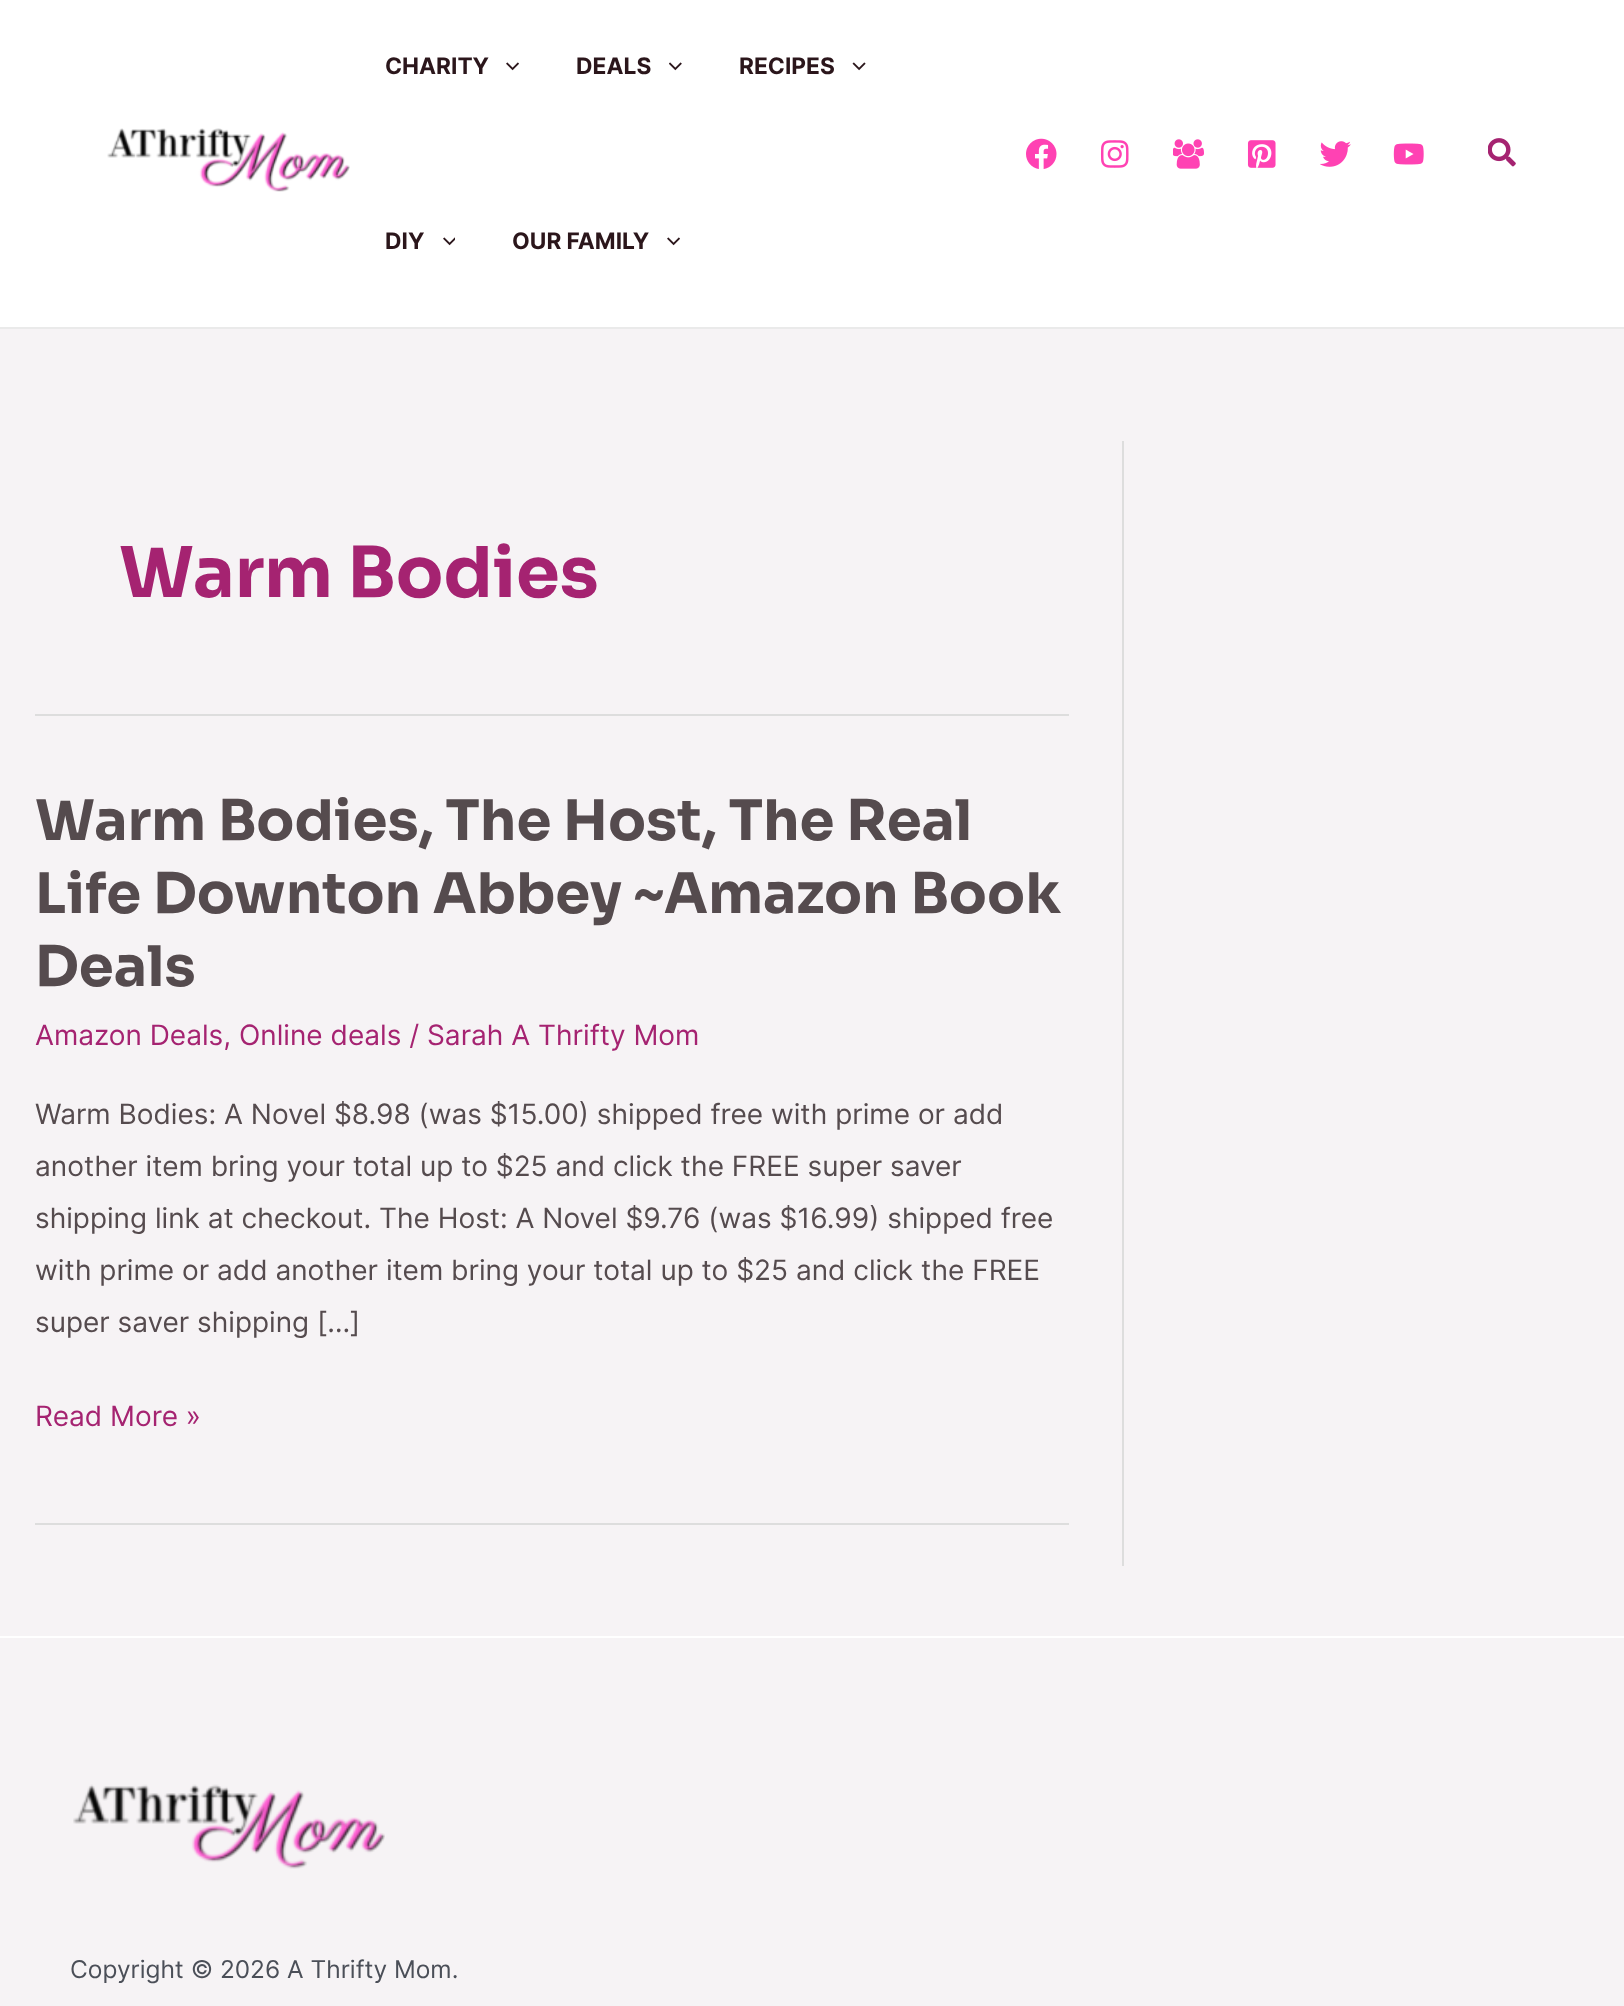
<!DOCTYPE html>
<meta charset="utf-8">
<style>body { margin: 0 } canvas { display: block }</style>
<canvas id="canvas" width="1624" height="2006"></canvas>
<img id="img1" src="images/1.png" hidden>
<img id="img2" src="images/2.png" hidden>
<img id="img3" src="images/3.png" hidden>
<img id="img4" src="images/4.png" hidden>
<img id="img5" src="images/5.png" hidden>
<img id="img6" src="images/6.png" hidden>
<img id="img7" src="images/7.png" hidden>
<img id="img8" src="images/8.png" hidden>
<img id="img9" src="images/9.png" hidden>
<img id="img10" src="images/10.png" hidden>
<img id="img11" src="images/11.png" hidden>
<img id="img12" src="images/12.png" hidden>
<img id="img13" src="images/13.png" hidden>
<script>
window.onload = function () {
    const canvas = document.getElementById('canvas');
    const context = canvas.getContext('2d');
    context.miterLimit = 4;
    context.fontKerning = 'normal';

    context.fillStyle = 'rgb(246, 243, 245)';
    context.fillRect(0, 0, 1624, 2006);
    context.fillStyle = 'rgb(255, 255, 255)';
    context.fillRect(0, 0, 1624, 327);
    context.fillStyle = 'rgb(234, 234, 234)';
    context.fillRect(0, 327, 1624, 2);
    context.drawImage(document.getElementById('img1'), 107, 128, 243, 64);
    context.drawImage(document.getElementById('img2'), 506, 62, 13, 9);
    context.drawImage(document.getElementById('img3'), 669, 62, 13, 9);
    context.drawImage(document.getElementById('img4'), 852, 62, 14, 9);
    context.drawImage(document.getElementById('img5'), 443, 237, 12, 9);
    context.drawImage(document.getElementById('img2'), 667, 237, 13, 9);
    context.drawImage(document.getElementById('img6'), 1026, 138, 31, 31);
    context.drawImage(document.getElementById('img7'), 1100, 140, 29, 28);
    context.drawImage(document.getElementById('img8'), 1173, 139, 31, 30);
    context.drawImage(document.getElementById('img9'), 1247, 140, 29, 28);
    context.drawImage(document.getElementById('img10'), 1320, 141, 31, 26);
    context.drawImage(document.getElementById('img11'), 1393, 143, 31, 22);
    context.drawImage(document.getElementById('img12'), 1488, 138, 28, 29);
    context.fillStyle = 'rgb(221, 221, 221)';
    context.fillRect(35, 714, 1034, 2);
    context.fillRect(35, 1523, 1034, 2);
    context.fillRect(1122, 441, 2, 1125);
    context.fillStyle = 'rgb(255, 255, 255)';
    context.fillRect(0, 1636, 1624, 2);
    context.drawImage(document.getElementById('img13'), 73, 1784, 312, 85);
    context.font = 'bold 22.75px Inter';
    context.fillStyle = 'rgb(43, 22, 27)';
    context.fillText('CHARITY', 385, 74);
    context.fillText('DEALS', 576, 74);
    context.fillText('RECIPES', 739, 74);
    context.fillText('DIY', 385, 249);
    context.fillText('OUR FAMILY', 512, 249);
    context.font = 'bold 70px Sora';
    context.fillStyle = 'rgb(165, 35, 113)';
    context.fillText('Warm Bodies', 119, 597);
    context.font = 'bold 56px Sora';
    context.fillStyle = 'rgb(85, 75, 78)';
    context.fillText('Warm Bodies, The Host, The Real', 35, 840);
    context.fillText('Life Downton Abbey ~Amazon Book', 35, 913);
    context.fillText('Deals', 35, 986);
    context.font = '28px Inter';
    context.fillStyle = 'rgb(165, 35, 113)';
    context.fillText('Amazon Deals, Online deals / Sarah A Thrifty Mom', 35, 1045);
    context.fillStyle = 'rgb(85, 75, 78)';
    context.fillText('Warm Bodies: A Novel $8.98 (was $15.00) shipped free with prime or add', 35, 1124);
    context.fillText('another item bring your total up to $25 and click the FREE super saver', 35, 1176);
    context.fillText('shipping link at checkout. The Host: A Novel $9.76 (was $16.99) shipped free', 35, 1228);
    context.fillText('with prime or add another item bring your total up to $25 and click the FREE', 35, 1280);
    context.fillText('super saver shipping […]', 35, 1332);
    context.fillStyle = 'rgb(165, 35, 113)';
    context.fillText('Read More »', 35, 1426);
    context.font = '24.5px Inter';
    context.fillStyle = 'rgb(75, 79, 88)';
    context.fillText('Copyright © 2026 A Thrifty Mom.', 70, 1978);
};
</script>
